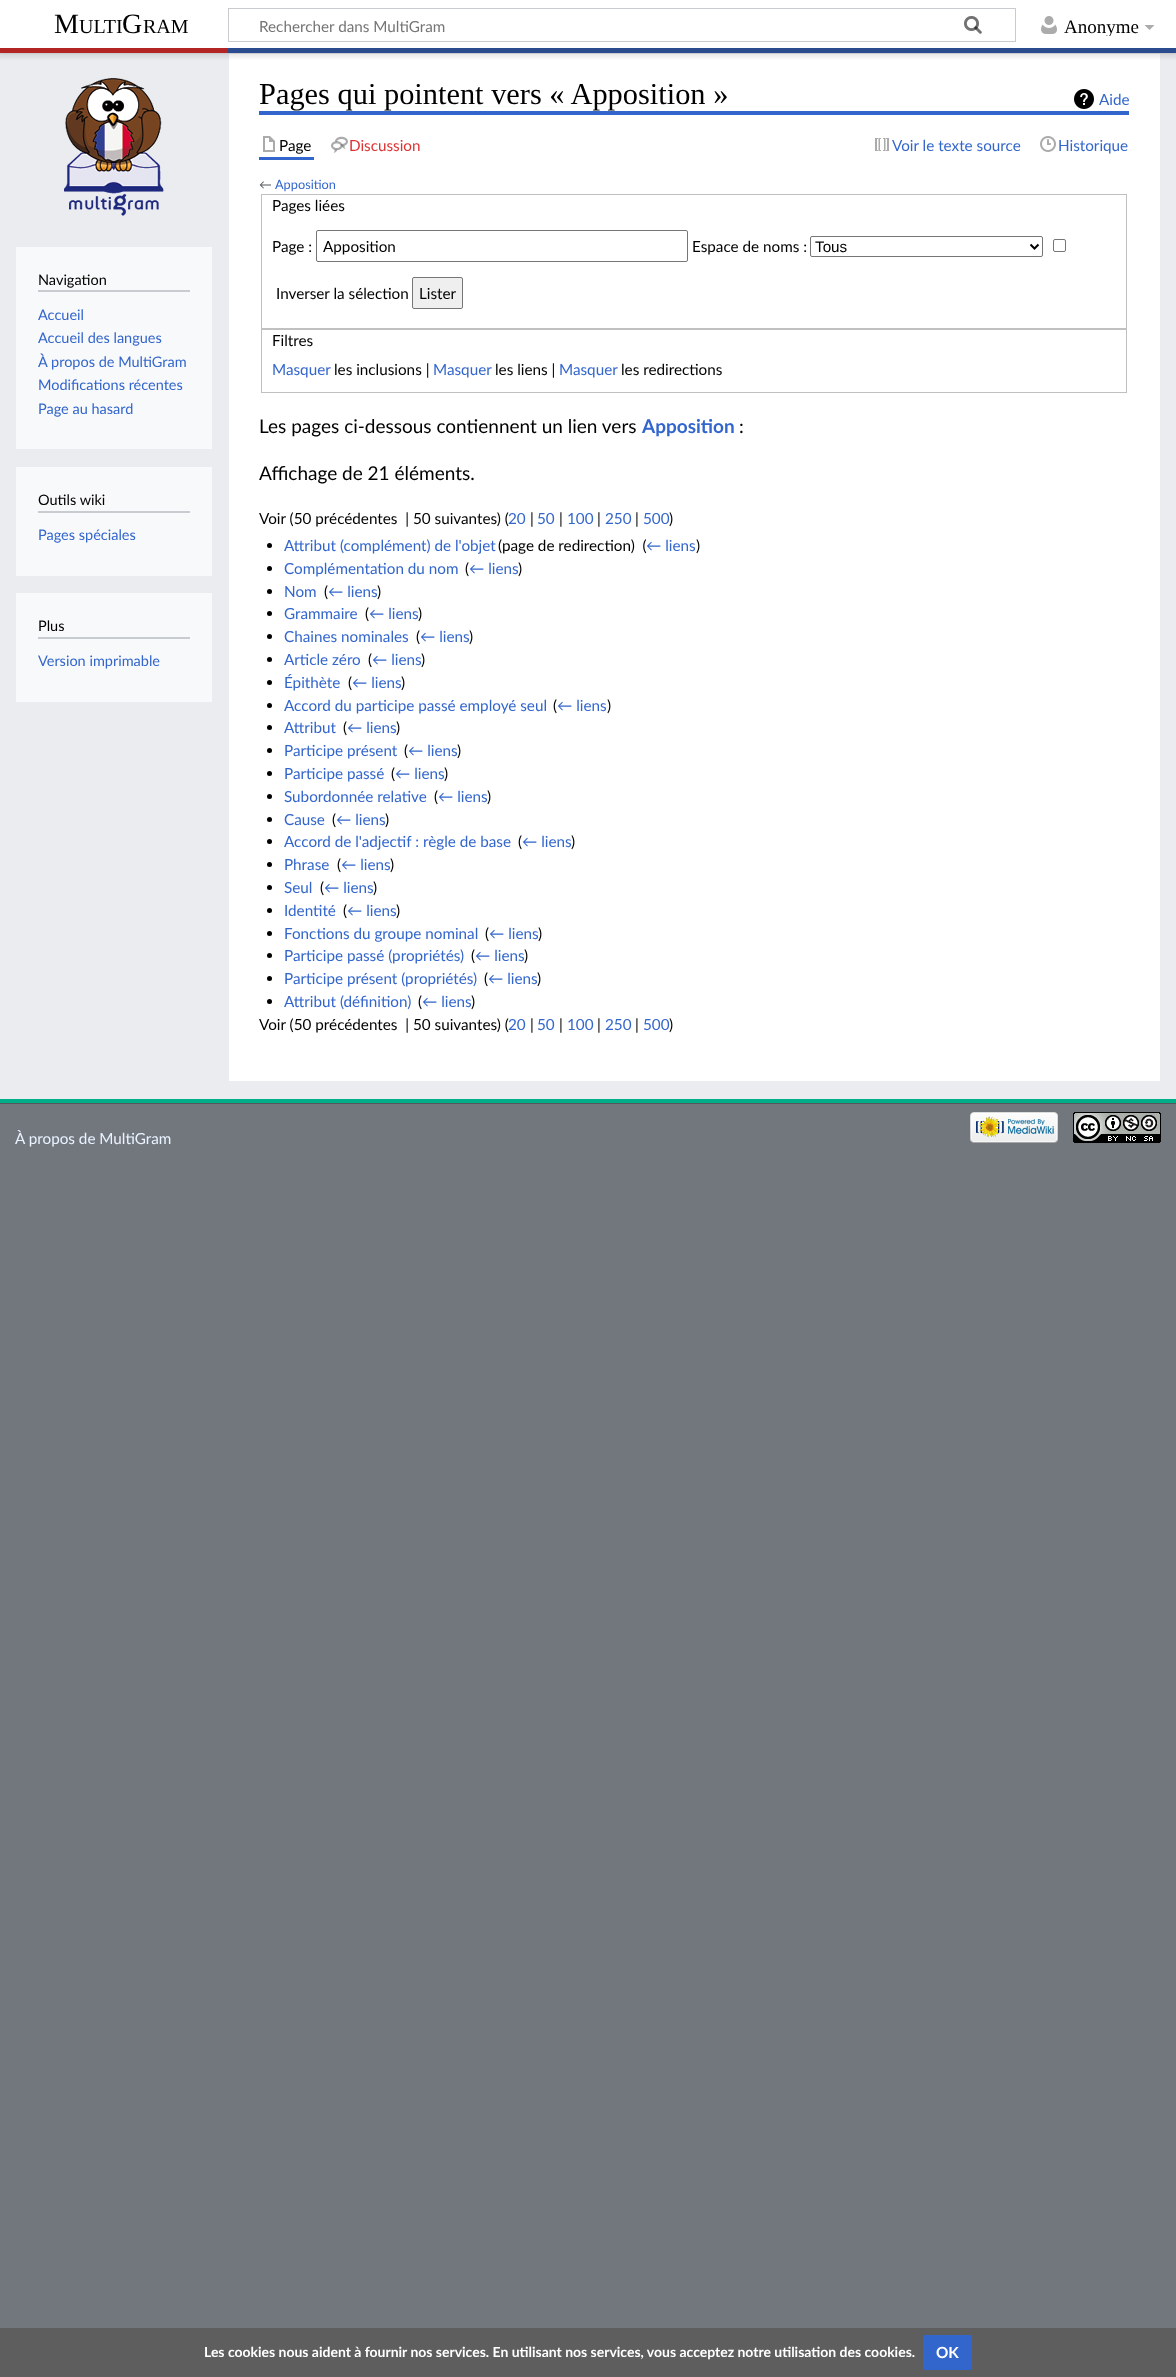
<!DOCTYPE html>
<meta charset="utf-8">
<style>body { margin: 0 } canvas { display: block }</style>
<canvas id="canvas" width="1176" height="2377"></canvas>
<img id="img1" src="images/1.png" hidden>
<img id="img2" src="images/2.png" hidden>
<img id="img3" src="images/3.png" hidden>
<img id="img4" src="images/4.png" hidden>
<img id="img5" src="images/5.png" hidden>
<img id="img6" src="images/6.png" hidden>
<img id="img7" src="images/7.png" hidden>
<img id="img8" src="images/8.png" hidden>
<img id="img9" src="images/9.png" hidden>
<img id="img10" src="images/10.png" hidden>
<img id="img11" src="images/11.png" hidden>
<script>
window.onload = function () {
    const canvas = document.getElementById('canvas');
    const context = canvas.getContext('2d');
    context.miterLimit = 4;
    context.fontKerning = 'normal';

    context.fillStyle = 'rgb(114, 119, 125)';
    context.fillRect(0, 0, 1176, 2377);
    context.fillStyle = 'rgb(234, 236, 240)';
    context.fillRect(0, 53, 1176, 1046);
    context.fillStyle = 'rgb(255, 255, 255)';
    context.fillRect(229, 54, 931, 1027);
    context.fillStyle = 'rgba(0, 0, 0, 0.2)';
    context.filter = 'blur(1px)';
    context.beginPath();
    context.rect(0, 48, 1176, 5);
    context.fill();
    context.filter = 'none';
    context.fillStyle = 'rgba(0, 0, 0, 0.07)';
    context.filter = 'blur(1.5px)';
    context.beginPath();
    context.rect(-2, 49, 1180, 9);
    context.fill();
    context.filter = 'none';
    context.fillStyle = 'rgb(255, 255, 255)';
    context.fillRect(0, 0, 1176, 48);
    context.strokeStyle = 'rgb(200, 204, 209)';
    context.strokeRect(228.5, 8.5, 787, 33);
    context.drawImage(document.getElementById('img1'), 964, 16, 18, 18);
    context.drawImage(document.getElementById('img2'), 964, 16, 18, 18);
    context.drawImage(document.getElementById('img3'), 1041, 16, 16, 18);
    context.fillStyle = 'rgb(171, 171, 171)';
    context.beginPath();
    context.moveTo(1154.5, 25);
    context.lineTo(1149.5, 30);
    context.lineTo(1144.5, 25);
    context.closePath();
    context.fill();
    context.fillStyle = 'rgb(179, 36, 36)';
    context.fillRect(0, 48, 228, 5);
    context.fillStyle = 'rgb(42, 75, 141)';
    context.fillRect(228, 48, 948, 5);
    context.fillStyle = 'rgb(0, 175, 137)';
    context.fillRect(0, 1099, 1176, 4);
    context.drawImage(document.getElementById('img4'), 64, 78, 100, 138);
    context.fillStyle = 'rgb(248, 249, 250)';
    context.fillRect(16, 247, 196, 202);
    context.fillStyle = 'rgb(200, 204, 209)';
    context.fillRect(38, 290, 152, 2);
    context.fillStyle = 'rgb(248, 249, 250)';
    context.fillRect(16, 467, 196, 109);
    context.fillStyle = 'rgb(200, 204, 209)';
    context.fillRect(38, 511, 152, 2);
    context.fillStyle = 'rgb(51, 102, 204)';
    context.fillRect(259, 111, 870, 4);
    context.drawImage(document.getElementById('img5'), 1074, 89, 20, 20);
    context.fillRect(259, 157, 55, 3);
    context.drawImage(document.getElementById('img6'), 263, 136, 12, 16);
    context.drawImage(document.getElementById('img7'), 331, 136, 17, 17);
    context.drawImage(document.getElementById('img8'), 875, 138, 14, 13);
    context.drawImage(document.getElementById('img9'), 1040, 136, 16, 16);
    context.strokeStyle = 'rgb(192, 192, 192)';
    context.strokeRect(261.5, 194.5, 865, 134);
    context.beginPath();
    context.roundRect(316.5, 230.5, 371, 31, 1.5);
    context.strokeStyle = 'rgb(118, 118, 118)';
    context.stroke();
    context.beginPath();
    context.roundRect(810.5, 236.5, 232, 20, 1.5);
    context.stroke();
    context.beginPath();
    context.moveTo(1030.5, 244.5);
    context.lineTo(1034.5, 248.5);
    context.lineTo(1038.5, 244.5);
    context.strokeStyle = 'rgb(0, 0, 0)';
    context.lineWidth = 2;
    context.stroke();
    context.beginPath();
    context.roundRect(1053.5, 239.5, 12, 12, 1.5);
    context.strokeStyle = 'rgb(118, 118, 118)';
    context.lineWidth = 1;
    context.stroke();
    context.fillStyle = 'rgb(239, 239, 239)';
    context.beginPath();
    context.roundRect(412.5, 277.5, 50, 31, 1.5);
    context.fill();
    context.stroke();
    context.strokeStyle = 'rgb(192, 192, 192)';
    context.strokeRect(261.5, 329.5, 865, 63);
    context.fillStyle = 'rgb(0, 0, 0)';
    context.beginPath();
    context.arc(269.5, 545.5, 2.5, 0, 2 * Math.PI);
    context.fill();
    context.beginPath();
    context.arc(269.5, 568.5, 2.5, 0, 2 * Math.PI);
    context.fill();
    context.beginPath();
    context.arc(269.5, 591.5, 2.5, 0, 2 * Math.PI);
    context.fill();
    context.beginPath();
    context.arc(269.5, 613.5, 2.5, 0, 2 * Math.PI);
    context.fill();
    context.beginPath();
    context.arc(269.5, 636.5, 2.5, 0, 2 * Math.PI);
    context.fill();
    context.beginPath();
    context.arc(269.5, 659.5, 2.5, 0, 2 * Math.PI);
    context.fill();
    context.beginPath();
    context.arc(269.5, 682.5, 2.5, 0, 2 * Math.PI);
    context.fill();
    context.beginPath();
    context.arc(269.5, 705.5, 2.5, 0, 2 * Math.PI);
    context.fill();
    context.beginPath();
    context.arc(269.5, 727.5, 2.5, 0, 2 * Math.PI);
    context.fill();
    context.beginPath();
    context.arc(269.5, 750.5, 2.5, 0, 2 * Math.PI);
    context.fill();
    context.beginPath();
    context.arc(269.5, 773.5, 2.5, 0, 2 * Math.PI);
    context.fill();
    context.beginPath();
    context.arc(269.5, 796.5, 2.5, 0, 2 * Math.PI);
    context.fill();
    context.beginPath();
    context.arc(269.5, 819.5, 2.5, 0, 2 * Math.PI);
    context.fill();
    context.beginPath();
    context.arc(269.5, 841.5, 2.5, 0, 2 * Math.PI);
    context.fill();
    context.beginPath();
    context.arc(269.5, 864.5, 2.5, 0, 2 * Math.PI);
    context.fill();
    context.beginPath();
    context.arc(269.5, 887.5, 2.5, 0, 2 * Math.PI);
    context.fill();
    context.beginPath();
    context.arc(269.5, 910.5, 2.5, 0, 2 * Math.PI);
    context.fill();
    context.beginPath();
    context.arc(269.5, 933.5, 2.5, 0, 2 * Math.PI);
    context.fill();
    context.beginPath();
    context.arc(269.5, 955.5, 2.5, 0, 2 * Math.PI);
    context.fill();
    context.beginPath();
    context.arc(269.5, 978.5, 2.5, 0, 2 * Math.PI);
    context.fill();
    context.beginPath();
    context.arc(269.5, 1001.5, 2.5, 0, 2 * Math.PI);
    context.fill();
    context.fillStyle = 'rgb(94, 94, 95)';
    context.fillRect(0, 2328, 1176, 49);
    context.fillStyle = 'rgb(51, 102, 204)';
    context.beginPath();
    context.roundRect(923.5, 2335.5, 48, 34, 1.5);
    context.fill();
    context.strokeStyle = 'rgb(51, 102, 204)';
    context.stroke();
    context.fillStyle = 'rgb(248, 249, 250)';
    context.fillRect(16, 593, 196, 109);
    context.fillStyle = 'rgb(200, 204, 209)';
    context.fillRect(38, 637, 152, 2);
    context.fillStyle = 'rgb(84, 89, 93)';
    context.fillRect(0, 1103, 1176, 1);
    context.drawImage(document.getElementById('img10'), 970, 1112, 88, 31);
    context.drawImage(document.getElementById('img11'), 1073, 1112, 88, 31);
    context.font = '28px Liberation Serif';
    context.fillStyle = 'rgb(0, 0, 0)';
    context.fillText('M', 54, 33);
    context.font = '20px Liberation Serif';
    context.fillText('ULTI', 79, 33);
    context.font = '28px Liberation Serif';
    context.fillText('G', 122, 33);
    context.font = '20px Liberation Serif';
    context.fillText('RAM', 143, 33);
    context.font = '15.25px Lato';
    context.fillStyle = 'rgb(117, 117, 117)';
    context.fillText('Rechercher dans MultiGram', 259, 32);
    context.save();
    context.beginPath();
    context.rect(1064, 17, 75, 19);
    context.clip();
    context.font = '19px Liberation Serif';
    context.fillStyle = 'rgb(0, 0, 0)';
    context.fillText('Anonyme', 1064, 33);
    context.restore();
    context.font = '14.5px Lato';
    context.fillStyle = 'rgb(0, 0, 0)';
    context.fillText('Navigation', 38, 285);
    context.fillStyle = 'rgb(51, 102, 204)';
    context.fillText('Accueil', 38, 320);
    context.fillText('Accueil des langues', 38, 343);
    context.fillText('À propos de MultiGram', 38, 367);
    context.fillText('Modifications récentes', 38, 390);
    context.fillText('Page au hasard', 38, 414);
    context.fillStyle = 'rgb(0, 0, 0)';
    context.fillText('Outils wiki', 38, 505);
    context.fillStyle = 'rgb(51, 102, 204)';
    context.fillText('Pages spéciales', 38, 540);
    context.font = '30.4px Liberation Serif';
    context.fillStyle = 'rgb(0, 0, 0)';
    context.fillText('Pages qui pointent vers « Apposition »', 259, 104);
    context.font = '15.25px Lato';
    context.fillStyle = 'rgb(51, 102, 204)';
    context.fillText('Aide', 1099, 105);
    context.fillStyle = 'rgb(0, 0, 0)';
    context.fillText('Page', 279, 151);
    context.fillStyle = 'rgb(221, 51, 51)';
    context.fillText('Discussion', 349, 151);
    context.fillStyle = 'rgb(51, 102, 204)';
    context.fillText('Voir le texte source', 892, 151);
    context.fillText('Historique', 1058, 151);
    context.font = '12.75px Lato';
    context.fillStyle = 'rgb(84, 89, 93)';
    context.fillText('←', 259, 189);
    context.fillStyle = 'rgb(51, 102, 204)';
    context.fillText('Apposition', 275, 189);
    context.font = '15.25px Lato';
    context.fillStyle = 'rgb(0, 0, 0)';
    context.fillText('Pages liées', 272, 211);
    context.fillText('Page :', 272, 252);
    context.fillText('Apposition', 323, 252);
    context.fillText('Espace de noms :', 692, 252);
    context.font = '15.25px Liberation Sans';
    context.fillText('Tous', 815, 252);
    context.font = '15.25px Lato';
    context.fillText('Inverser la sélection', 276, 299);
    context.fillText('Lister', 419, 299);
    context.fillText('Filtres', 272, 346);
    context.fillStyle = 'rgb(51, 102, 204)';
    context.fillText('Masquer', 272, 375);
    context.fillStyle = 'rgb(0, 0, 0)';
    context.fillText('les inclusions |', 334, 375);
    context.fillStyle = 'rgb(51, 102, 204)';
    context.fillText('Masquer', 433, 375);
    context.fillStyle = 'rgb(0, 0, 0)';
    context.fillText('les liens |', 495, 375);
    context.fillStyle = 'rgb(51, 102, 204)';
    context.fillText('Masquer', 559, 375);
    context.fillStyle = 'rgb(0, 0, 0)';
    context.fillText('les redirections', 621, 375);
    context.font = '19px Lato';
    context.fillText('Les pages ci-dessous contiennent un lien vers', 259, 433);
    context.font = 'bold 19px Lato';
    context.fillStyle = 'rgb(51, 102, 204)';
    context.fillText('Apposition', 642, 433);
    context.font = '19px Lato';
    context.fillStyle = 'rgb(0, 0, 0)';
    context.fillText(':', 739, 433);
    context.fillText('Affichage de 21 éléments.', 259, 480);
    context.font = '15.25px Lato';
    context.fillText('Voir (50 précédentes  | 50 suivantes) (', 259, 524);
    context.fillStyle = 'rgb(51, 102, 204)';
    context.fillText('20', 508, 524);
    context.fillStyle = 'rgb(0, 0, 0)';
    context.fillText('|', 530, 524);
    context.fillStyle = 'rgb(51, 102, 204)';
    context.fillText('50', 537, 524);
    context.fillStyle = 'rgb(0, 0, 0)';
    context.fillText('|', 559, 524);
    context.fillStyle = 'rgb(51, 102, 204)';
    context.fillText('100', 567, 524);
    context.fillStyle = 'rgb(0, 0, 0)';
    context.fillText('|', 597, 524);
    context.fillStyle = 'rgb(51, 102, 204)';
    context.fillText('250', 605, 524);
    context.fillStyle = 'rgb(0, 0, 0)';
    context.fillText('|', 635, 524);
    context.fillStyle = 'rgb(51, 102, 204)';
    context.fillText('500', 643, 524);
    context.fillStyle = 'rgb(0, 0, 0)';
    context.fillText(')', 669, 524);
    context.fillStyle = 'rgb(51, 102, 204)';
    context.fillText('Attribut (complément) de l\'objet', 284, 551);
    context.fillStyle = 'rgb(0, 0, 0)';
    context.fillText('(page de redirection)  (', 498, 551);
    context.fillStyle = 'rgb(51, 102, 204)';
    context.fillText('← liens', 646, 551);
    context.fillStyle = 'rgb(0, 0, 0)';
    context.fillText(')', 696, 551);
    context.fillStyle = 'rgb(51, 102, 204)';
    context.fillText('Complémentation du nom', 284, 574);
    context.fillStyle = 'rgb(0, 0, 0)';
    context.fillText('(', 465, 574);
    context.fillStyle = 'rgb(51, 102, 204)';
    context.fillText('← liens', 469, 574);
    context.fillStyle = 'rgb(0, 0, 0)';
    context.fillText(')', 518, 574);
    context.fillStyle = 'rgb(51, 102, 204)';
    context.fillText('Nom', 284, 597);
    context.fillStyle = 'rgb(0, 0, 0)';
    context.fillText('(', 324, 597);
    context.fillStyle = 'rgb(51, 102, 204)';
    context.fillText('← liens', 328, 597);
    context.fillStyle = 'rgb(0, 0, 0)';
    context.fillText(')', 377, 597);
    context.fillStyle = 'rgb(51, 102, 204)';
    context.fillText('Grammaire', 284, 619);
    context.fillStyle = 'rgb(0, 0, 0)';
    context.fillText('(', 365, 619);
    context.fillStyle = 'rgb(51, 102, 204)';
    context.fillText('← liens', 369, 619);
    context.fillStyle = 'rgb(0, 0, 0)';
    context.fillText(')', 418, 619);
    context.fillStyle = 'rgb(51, 102, 204)';
    context.fillText('Chaines nominales', 284, 642);
    context.fillStyle = 'rgb(0, 0, 0)';
    context.fillText('(', 416, 642);
    context.fillStyle = 'rgb(51, 102, 204)';
    context.fillText('← liens', 420, 642);
    context.fillStyle = 'rgb(0, 0, 0)';
    context.fillText(')', 469, 642);
    context.fillStyle = 'rgb(51, 102, 204)';
    context.fillText('Article zéro', 284, 665);
    context.fillStyle = 'rgb(0, 0, 0)';
    context.fillText('(', 368, 665);
    context.fillStyle = 'rgb(51, 102, 204)';
    context.fillText('← liens', 372, 665);
    context.fillStyle = 'rgb(0, 0, 0)';
    context.fillText(')', 421, 665);
    context.fillStyle = 'rgb(51, 102, 204)';
    context.fillText('Épithète', 284, 688);
    context.fillStyle = 'rgb(0, 0, 0)';
    context.fillText('(', 348, 688);
    context.fillStyle = 'rgb(51, 102, 204)';
    context.fillText('← liens', 352, 688);
    context.fillStyle = 'rgb(0, 0, 0)';
    context.fillText(')', 401, 688);
    context.fillStyle = 'rgb(51, 102, 204)';
    context.fillText('Accord du participe passé employé seul', 284, 711);
    context.fillStyle = 'rgb(0, 0, 0)';
    context.fillText('(', 553, 711);
    context.fillStyle = 'rgb(51, 102, 204)';
    context.fillText('← liens', 557, 711);
    context.fillStyle = 'rgb(0, 0, 0)';
    context.fillText(')', 607, 711);
    context.fillStyle = 'rgb(51, 102, 204)';
    context.fillText('Attribut', 284, 733);
    context.fillStyle = 'rgb(0, 0, 0)';
    context.fillText('(', 343, 733);
    context.fillStyle = 'rgb(51, 102, 204)';
    context.fillText('← liens', 347, 733);
    context.fillStyle = 'rgb(0, 0, 0)';
    context.fillText(')', 396, 733);
    context.fillStyle = 'rgb(51, 102, 204)';
    context.fillText('Participe présent', 284, 756);
    context.fillStyle = 'rgb(0, 0, 0)';
    context.fillText('(', 404, 756);
    context.fillStyle = 'rgb(51, 102, 204)';
    context.fillText('← liens', 408, 756);
    context.fillStyle = 'rgb(0, 0, 0)';
    context.fillText(')', 457, 756);
    context.fillStyle = 'rgb(51, 102, 204)';
    context.fillText('Participe passé', 284, 779);
    context.fillStyle = 'rgb(0, 0, 0)';
    context.fillText('(', 391, 779);
    context.fillStyle = 'rgb(51, 102, 204)';
    context.fillText('← liens', 395, 779);
    context.fillStyle = 'rgb(0, 0, 0)';
    context.fillText(')', 444, 779);
    context.fillStyle = 'rgb(51, 102, 204)';
    context.fillText('Subordonnée relative', 284, 802);
    context.fillStyle = 'rgb(0, 0, 0)';
    context.fillText('(', 434, 802);
    context.fillStyle = 'rgb(51, 102, 204)';
    context.fillText('← liens', 438, 802);
    context.fillStyle = 'rgb(0, 0, 0)';
    context.fillText(')', 487, 802);
    context.fillStyle = 'rgb(51, 102, 204)';
    context.fillText('Cause', 284, 825);
    context.fillStyle = 'rgb(0, 0, 0)';
    context.fillText('(', 332, 825);
    context.fillStyle = 'rgb(51, 102, 204)';
    context.fillText('← liens', 336, 825);
    context.fillStyle = 'rgb(0, 0, 0)';
    context.fillText(')', 385, 825);
    context.fillStyle = 'rgb(51, 102, 204)';
    context.fillText('Accord de l\'adjectif : règle de base', 284, 847);
    context.fillStyle = 'rgb(0, 0, 0)';
    context.fillText('(', 518, 847);
    context.fillStyle = 'rgb(51, 102, 204)';
    context.fillText('← liens', 522, 847);
    context.fillStyle = 'rgb(0, 0, 0)';
    context.fillText(')', 571, 847);
    context.fillStyle = 'rgb(51, 102, 204)';
    context.fillText('Phrase', 284, 870);
    context.fillStyle = 'rgb(0, 0, 0)';
    context.fillText('(', 337, 870);
    context.fillStyle = 'rgb(51, 102, 204)';
    context.fillText('← liens', 341, 870);
    context.fillStyle = 'rgb(0, 0, 0)';
    context.fillText(')', 390, 870);
    context.fillStyle = 'rgb(51, 102, 204)';
    context.fillText('Seul', 284, 893);
    context.fillStyle = 'rgb(0, 0, 0)';
    context.fillText('(', 320, 893);
    context.fillStyle = 'rgb(51, 102, 204)';
    context.fillText('← liens', 324, 893);
    context.fillStyle = 'rgb(0, 0, 0)';
    context.fillText(')', 373, 893);
    context.fillStyle = 'rgb(51, 102, 204)';
    context.fillText('Identité', 284, 916);
    context.fillStyle = 'rgb(0, 0, 0)';
    context.fillText('(', 343, 916);
    context.fillStyle = 'rgb(51, 102, 204)';
    context.fillText('← liens', 347, 916);
    context.fillStyle = 'rgb(0, 0, 0)';
    context.fillText(')', 396, 916);
    context.fillStyle = 'rgb(51, 102, 204)';
    context.fillText('Fonctions du groupe nominal', 284, 939);
    context.fillStyle = 'rgb(0, 0, 0)';
    context.fillText('(', 485, 939);
    context.fillStyle = 'rgb(51, 102, 204)';
    context.fillText('← liens', 489, 939);
    context.fillStyle = 'rgb(0, 0, 0)';
    context.fillText(')', 538, 939);
    context.fillStyle = 'rgb(51, 102, 204)';
    context.fillText('Participe passé (propriétés)', 284, 961);
    context.fillStyle = 'rgb(0, 0, 0)';
    context.fillText('(', 471, 961);
    context.fillStyle = 'rgb(51, 102, 204)';
    context.fillText('← liens', 475, 961);
    context.fillStyle = 'rgb(0, 0, 0)';
    context.fillText(')', 524, 961);
    context.fillStyle = 'rgb(51, 102, 204)';
    context.fillText('Participe présent (propriétés)', 284, 984);
    context.fillStyle = 'rgb(0, 0, 0)';
    context.fillText('(', 484, 984);
    context.fillStyle = 'rgb(51, 102, 204)';
    context.fillText('← liens', 488, 984);
    context.fillStyle = 'rgb(0, 0, 0)';
    context.fillText(')', 537, 984);
    context.fillStyle = 'rgb(51, 102, 204)';
    context.fillText('Attribut (définition)', 284, 1007);
    context.fillStyle = 'rgb(0, 0, 0)';
    context.fillText('(', 418, 1007);
    context.fillStyle = 'rgb(51, 102, 204)';
    context.fillText('← liens', 422, 1007);
    context.fillStyle = 'rgb(0, 0, 0)';
    context.fillText(')', 471, 1007);
    context.fillText('Voir (50 précédentes  | 50 suivantes) (', 259, 1030);
    context.fillStyle = 'rgb(51, 102, 204)';
    context.fillText('20', 508, 1030);
    context.fillStyle = 'rgb(0, 0, 0)';
    context.fillText('|', 530, 1030);
    context.fillStyle = 'rgb(51, 102, 204)';
    context.fillText('50', 537, 1030);
    context.fillStyle = 'rgb(0, 0, 0)';
    context.fillText('|', 559, 1030);
    context.fillStyle = 'rgb(51, 102, 204)';
    context.fillText('100', 567, 1030);
    context.fillStyle = 'rgb(0, 0, 0)';
    context.fillText('|', 597, 1030);
    context.fillStyle = 'rgb(51, 102, 204)';
    context.fillText('250', 605, 1030);
    context.fillStyle = 'rgb(0, 0, 0)';
    context.fillText('|', 635, 1030);
    context.fillStyle = 'rgb(51, 102, 204)';
    context.fillText('500', 643, 1030);
    context.fillStyle = 'rgb(0, 0, 0)';
    context.fillText(')', 669, 1030);
    context.font = 'bold 13.98px Lato';
    context.fillStyle = 'rgb(255, 255, 255)';
    context.fillText('Les cookies nous aident à fournir nos services. En utilisant nos services, vous acceptez notre utilisation des cookies.', 204, 2357);
    context.font = 'bold 15.25px Lato';
    context.fillText('OK', 936, 2358);
    context.font = '14.5px Lato';
    context.fillStyle = 'rgb(0, 0, 0)';
    context.fillText('Plus', 38, 631);
    context.fillStyle = 'rgb(51, 102, 204)';
    context.fillText('Version imprimable', 38, 666);
    context.font = '15.25px Lato';
    context.fillStyle = 'rgb(234, 243, 255)';
    context.fillText('À propos de MultiGram', 15, 1144);
};
</script>
